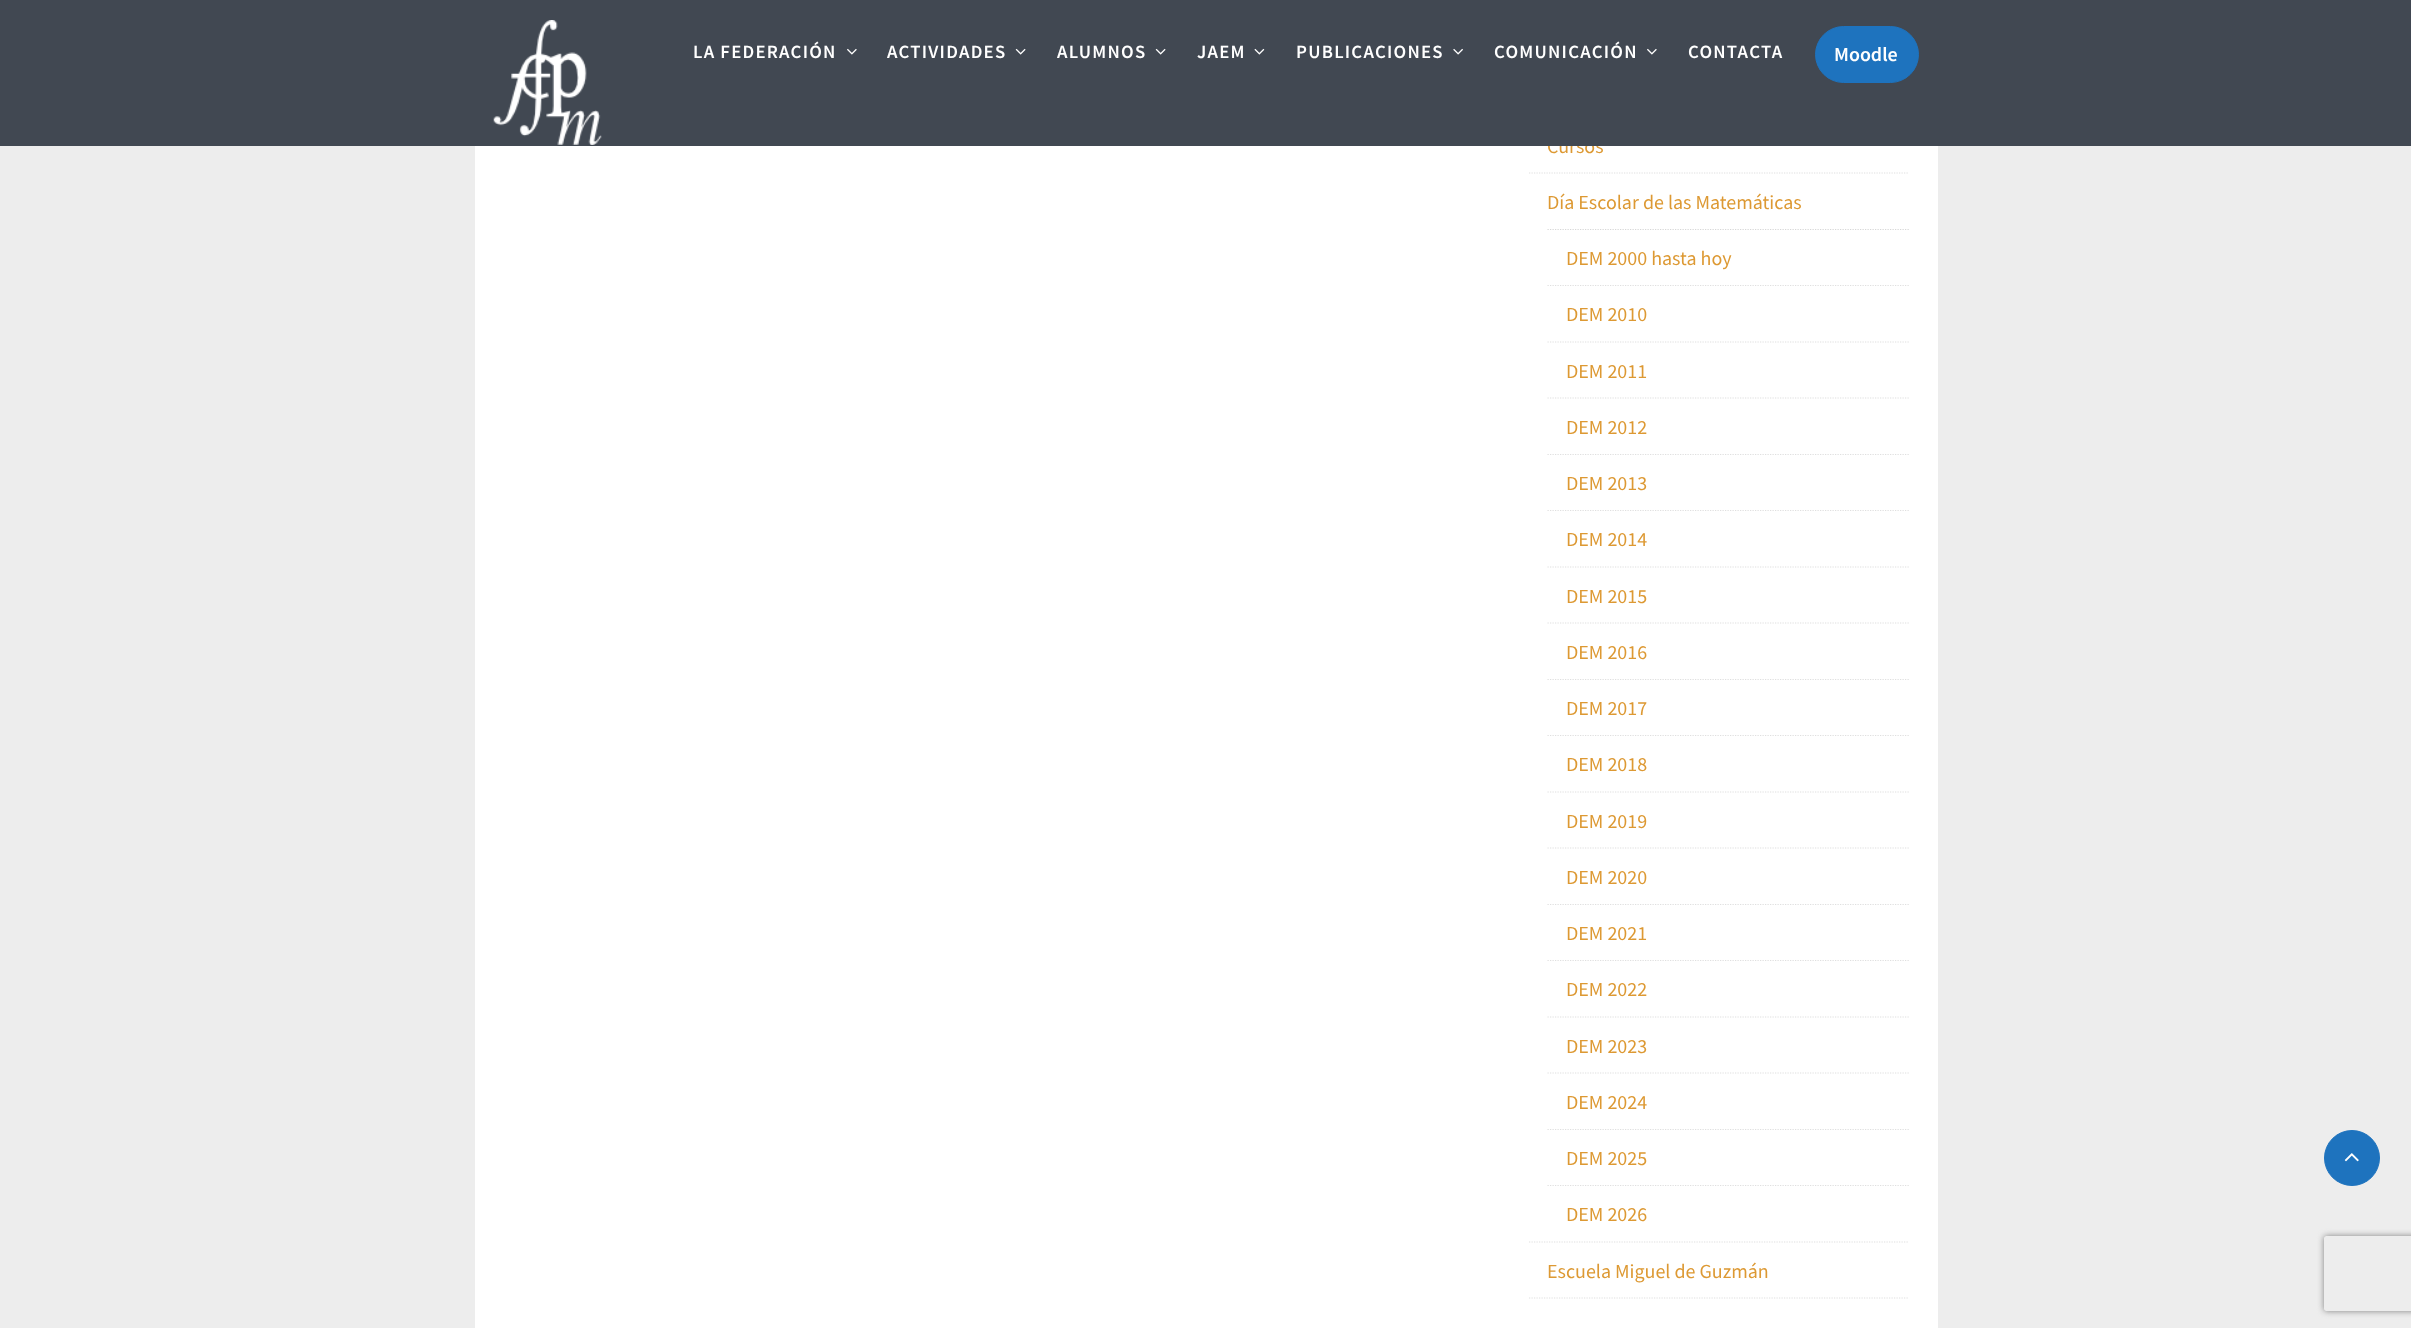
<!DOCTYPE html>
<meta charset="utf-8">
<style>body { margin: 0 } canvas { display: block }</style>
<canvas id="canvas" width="2411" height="1328"></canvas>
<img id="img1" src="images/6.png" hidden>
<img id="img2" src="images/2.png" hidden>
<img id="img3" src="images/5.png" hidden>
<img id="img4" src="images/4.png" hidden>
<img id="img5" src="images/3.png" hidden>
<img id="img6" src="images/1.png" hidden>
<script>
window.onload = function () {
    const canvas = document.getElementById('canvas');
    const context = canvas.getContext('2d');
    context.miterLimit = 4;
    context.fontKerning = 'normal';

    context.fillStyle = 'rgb(237, 237, 237)';
    context.fillRect(0, 0, 2411, 1328);
    context.fillStyle = 'rgb(255, 255, 255)';
    context.fillRect(475, 146, 1463, 1182);
    context.beginPath();
    context.moveTo(1529, 173);
    context.lineTo(1909, 173);
    context.strokeStyle = 'rgb(223, 223, 223)';
    context.lineWidth = 1.2;
    context.setLineDash([1.25, 1.25]);
    context.stroke();
    context.beginPath();
    context.moveTo(1529, 1242);
    context.lineTo(1909, 1242);
    context.stroke();
    context.beginPath();
    context.moveTo(1547.5, 229.5);
    context.lineTo(1909, 229.5);
    context.strokeStyle = 'rgb(215, 215, 215)';
    context.stroke();
    context.beginPath();
    context.moveTo(1547.5, 285.5);
    context.lineTo(1909, 285.5);
    context.strokeStyle = 'rgb(223, 223, 223)';
    context.stroke();
    context.beginPath();
    context.moveTo(1547.5, 342);
    context.lineTo(1909, 342);
    context.stroke();
    context.beginPath();
    context.moveTo(1547.5, 398);
    context.lineTo(1909, 398);
    context.stroke();
    context.beginPath();
    context.moveTo(1547.5, 454.5);
    context.lineTo(1909, 454.5);
    context.stroke();
    context.beginPath();
    context.moveTo(1547.5, 510.5);
    context.lineTo(1909, 510.5);
    context.stroke();
    context.beginPath();
    context.moveTo(1547.5, 567);
    context.lineTo(1909, 567);
    context.stroke();
    context.beginPath();
    context.moveTo(1547.5, 623);
    context.lineTo(1909, 623);
    context.stroke();
    context.beginPath();
    context.moveTo(1547.5, 679.5);
    context.lineTo(1909, 679.5);
    context.stroke();
    context.beginPath();
    context.moveTo(1547.5, 735.5);
    context.lineTo(1909, 735.5);
    context.stroke();
    context.beginPath();
    context.moveTo(1547.5, 792);
    context.lineTo(1909, 792);
    context.stroke();
    context.beginPath();
    context.moveTo(1547.5, 848);
    context.lineTo(1909, 848);
    context.stroke();
    context.beginPath();
    context.moveTo(1547.5, 904.5);
    context.lineTo(1909, 904.5);
    context.stroke();
    context.beginPath();
    context.moveTo(1547.5, 960.5);
    context.lineTo(1909, 960.5);
    context.stroke();
    context.beginPath();
    context.moveTo(1547.5, 1017);
    context.lineTo(1909, 1017);
    context.stroke();
    context.beginPath();
    context.moveTo(1547.5, 1073);
    context.lineTo(1909, 1073);
    context.stroke();
    context.beginPath();
    context.moveTo(1547.5, 1129.5);
    context.lineTo(1909, 1129.5);
    context.stroke();
    context.beginPath();
    context.moveTo(1547.5, 1185.5);
    context.lineTo(1909, 1185.5);
    context.stroke();
    context.beginPath();
    context.moveTo(1529, 1298);
    context.lineTo(1909, 1298);
    context.stroke();
    context.fillStyle = 'rgb(30, 115, 190)';
    context.beginPath();
    context.arc(2352, 1158, 27.5, 0, 2 * Math.PI);
    context.fill();
    context.strokeStyle = 'rgb(30, 115, 190)';
    context.lineWidth = 1;
    context.setLineDash([]);
    context.stroke();
    context.drawImage(document.getElementById('img1'), 2344, 1153, 15, 9);
    context.save();
    context.beginPath();
    context.moveTo(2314, 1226);
    context.lineTo(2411, 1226);
    context.lineTo(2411, 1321);
    context.lineTo(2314, 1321);
    context.closePath();
    context.moveTo(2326.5, 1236);
    context.lineTo(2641.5, 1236);
    context.bezierCurveTo(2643, 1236, 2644, 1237, 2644, 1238.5);
    context.lineTo(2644, 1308.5);
    context.bezierCurveTo(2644, 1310, 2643, 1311, 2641.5, 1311);
    context.lineTo(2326.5, 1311);
    context.bezierCurveTo(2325, 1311, 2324, 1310, 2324, 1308.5);
    context.lineTo(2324, 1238.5);
    context.bezierCurveTo(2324, 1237, 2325, 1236, 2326.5, 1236);
    context.closePath();
    context.clip('evenodd');
    context.fillStyle = 'rgb(128, 128, 128)';
    context.filter = 'blur(3px)';
    context.beginPath();
    context.roundRect(2324, 1236, 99, 75, 2.5);
    context.fill();
    context.filter = 'none';
    context.restore();
    context.font = '20px Source Sans Pro';
    context.fillStyle = 'rgb(221, 153, 51)';
    context.fillText('Cursos', 1547, 153);
    context.fillStyle = 'rgb(65, 72, 82)';
    context.fillRect(0, 0, 2411, 146);
    context.letterSpacing = '1.25px';
    context.font = '600 18.75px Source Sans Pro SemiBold';
    context.fillStyle = 'rgb(255, 255, 255)';
    context.fillText('CONTACTA', 1688, 58);
    context.fillText('COMUNICACIÓN', 1494, 58);
    context.drawImage(document.getElementById('img2'), 1647, 48, 10, 7);
    context.fillText('PUBLICACIONES', 1296, 58);
    context.drawImage(document.getElementById('img3'), 1453, 48, 10, 7);
    context.fillText('JAEM', 1197, 58);
    context.drawImage(document.getElementById('img4'), 1254, 48, 11, 7);
    context.fillText('ALUMNOS', 1057, 58);
    context.drawImage(document.getElementById('img5'), 1155, 48, 11, 7);
    context.fillText('ACTIVIDADES', 887, 58);
    context.drawImage(document.getElementById('img5'), 1015, 48, 11, 7);
    context.fillText('LA FEDERACIÓN', 693, 58);
    context.drawImage(document.getElementById('img2'), 847, 48, 10, 7);
    context.fillStyle = 'rgb(30, 115, 190)';
    context.beginPath();
    context.roundRect(1815.5, 26.5, 103, 56, 28);
    context.fill();
    context.stroke();
    context.letterSpacing = '0px';
    context.font = '600 20px Source Sans Pro SemiBold';
    context.fillStyle = 'rgb(255, 255, 255)';
    context.fillText('Moodle', 1834, 61);
    context.drawImage(document.getElementById('img6'), 493, 20, 109, 125);
    context.font = '20px Source Sans Pro';
    context.fillStyle = 'rgb(221, 153, 51)';
    context.fillText('Día Escolar de las Matemáticas', 1547, 209);
    context.fillText('DEM 2000 hasta hoy', 1566, 265);
    context.fillText('DEM 2010', 1566, 321);
    context.fillText('DEM 2011', 1566, 378);
    context.fillText('DEM 2012', 1566, 434);
    context.fillText('DEM 2013', 1566, 490);
    context.fillText('DEM 2014', 1566, 546);
    context.fillText('DEM 2015', 1566, 603);
    context.fillText('DEM 2016', 1566, 659);
    context.fillText('DEM 2017', 1566, 715);
    context.fillText('DEM 2018', 1566, 771);
    context.fillText('DEM 2019', 1566, 828);
    context.fillText('DEM 2020', 1566, 884);
    context.fillText('DEM 2021', 1566, 940);
    context.fillText('DEM 2022', 1566, 996);
    context.fillText('DEM 2023', 1566, 1053);
    context.fillText('DEM 2024', 1566, 1109);
    context.fillText('DEM 2025', 1566, 1165);
    context.fillText('DEM 2026', 1566, 1221);
    context.fillText('Escuela Miguel de Guzmán', 1547, 1278);
};
</script>
